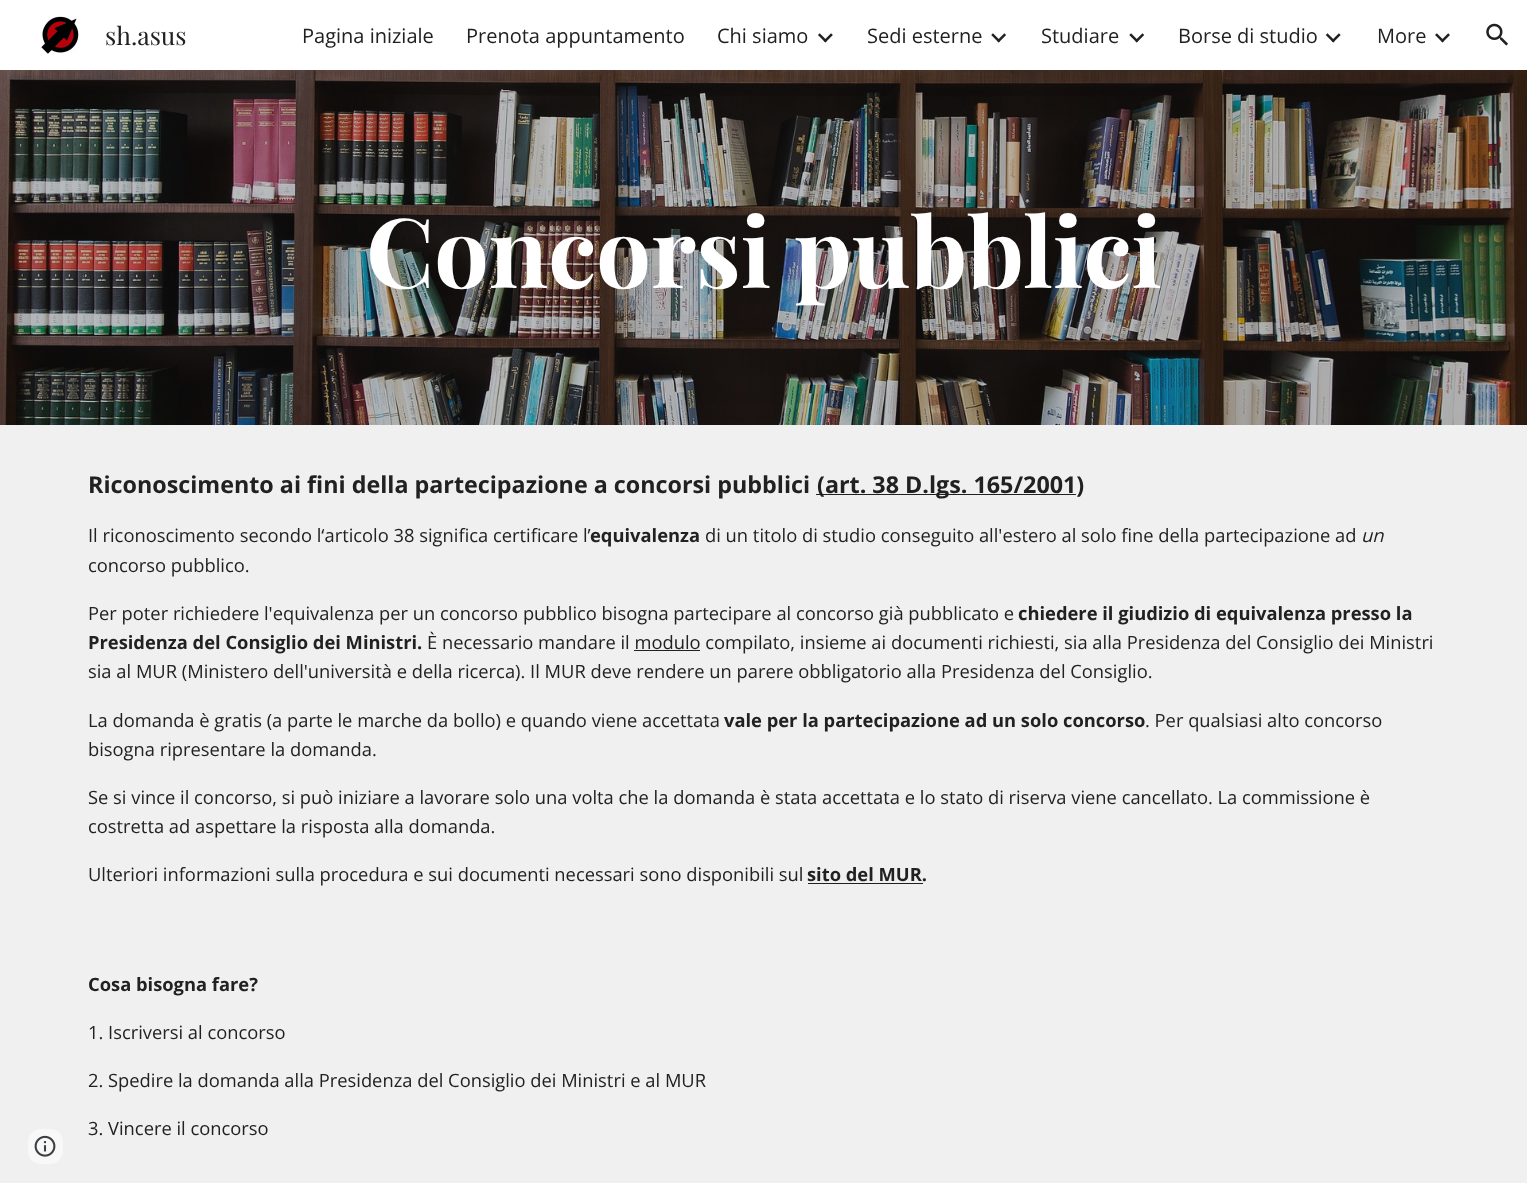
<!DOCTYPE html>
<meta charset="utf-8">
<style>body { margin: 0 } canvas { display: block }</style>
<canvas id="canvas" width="1527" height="1188"></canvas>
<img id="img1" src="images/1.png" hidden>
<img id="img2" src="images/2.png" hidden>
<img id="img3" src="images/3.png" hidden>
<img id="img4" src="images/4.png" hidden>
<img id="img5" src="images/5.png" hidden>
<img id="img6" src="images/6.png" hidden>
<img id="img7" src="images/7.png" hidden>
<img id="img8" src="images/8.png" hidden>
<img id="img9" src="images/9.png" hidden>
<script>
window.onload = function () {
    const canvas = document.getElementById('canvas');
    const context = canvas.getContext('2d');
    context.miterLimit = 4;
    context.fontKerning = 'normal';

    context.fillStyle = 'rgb(255, 255, 255)';
    context.fillRect(0, 0, 1527, 1188);
    context.drawImage(document.getElementById('img1'), 41, 16, 38, 38);
    context.drawImage(document.getElementById('img2'), 818, 33, 15, 10);
    context.drawImage(document.getElementById('img3'), 991, 33, 15, 10);
    context.drawImage(document.getElementById('img4'), 1129, 33, 16, 10);
    context.drawImage(document.getElementById('img5'), 1325, 33, 16, 10);
    context.drawImage(document.getElementById('img6'), 1435, 33, 15, 10);
    context.drawImage(document.getElementById('img7'), 1486, 23, 22, 23);
    context.drawImage(document.getElementById('img8'), 0, 70, 1527, 355);
    context.fillStyle = 'rgb(240, 240, 240)';
    context.fillRect(0, 425, 1527, 758);
    context.fillStyle = 'rgb(33, 33, 33)';
    context.fillRect(816, 494, 260, 1);
    context.fillRect(634, 650, 66, 1);
    context.fillRect(808, 883, 115, 1);
    context.fillStyle = 'rgb(248, 248, 248)';
    context.beginPath();
    context.roundRect(28, 1129, 35, 35, 13);
    context.fill();
    context.drawImage(document.getElementById('img9'), 34, 1135, 22, 22);
    context.font = '25px Playfair Display';
    context.fillStyle = 'rgb(33, 33, 33)';
    context.fillText('sh.asus', 105, 45);
    context.font = '20px Open Sans';
    context.fillText('Pagina iniziale', 302, 43);
    context.fillText('Prenota appuntamento', 466, 43);
    context.fillText('Chi siamo', 717, 43);
    context.fillText('Sedi esterne', 867, 43);
    context.fillText('Studiare', 1041, 43);
    context.fillText('Borse di studio', 1178, 43);
    context.fillText('More', 1377, 43);
    context.font = 'bold 96.75px Playfair Display';
    context.fillStyle = 'rgb(255, 255, 255)';
    context.fillText('Concorsi pubblici', 366, 288);
    context.font = 'bold 23.3px Open Sans';
    context.fillStyle = 'rgb(33, 33, 33)';
    context.fillText('Riconoscimento ai fini della partecipazione a concorsi pubblici', 88, 493);
    context.fillText('(art. 38 D.lgs. 165/2001)', 817, 493);
    context.font = '18.33px Open Sans';
    context.fillText('Il riconoscimento secondo l‘articolo 38 significa certificare l’', 88, 542);
    context.font = 'bold 18.33px Open Sans';
    context.fillText('equivalenza', 590, 542);
    context.font = '18.33px Open Sans';
    context.fillText('di un titolo di studio conseguito all\'estero al solo fine della partecipazione ad', 705, 542);
    context.font = 'italic 18.33px Open Sans';
    context.fillText('un', 1361, 542);
    context.font = '18.33px Open Sans';
    context.fillText('concorso pubblico.', 88, 572);
    context.fillText('Per poter richiedere l\'equivalenza per un concorso pubblico bisogna partecipare al concorso già pubblicato e', 88, 620);
    context.font = 'bold 18.33px Open Sans';
    context.fillText('chiedere il giudizio di equivalenza presso la', 1018, 620);
    context.fillText('Presidenza del Consiglio dei Ministri.', 88, 649);
    context.font = '18.33px Open Sans';
    context.fillText('È necessario mandare il modulo compilato, insieme ai documenti richiesti, sia alla Presidenza del Consiglio dei Ministri', 427, 649);
    context.fillText('sia al MUR (Ministero dell\'università e della ricerca). Il MUR deve rendere un parere obbligatorio alla Presidenza del Consiglio.', 88, 678);
    context.fillText('La domanda è gratis (a parte le marche da bollo) e quando viene accettata', 88, 727);
    context.font = 'bold 18.33px Open Sans';
    context.fillText('vale per la partecipazione ad un solo concorso', 724, 727);
    context.font = '18.33px Open Sans';
    context.fillText('. Per qualsiasi alto concorso', 1145, 727);
    context.fillText('bisogna ripresentare la domanda.', 88, 756);
    context.fillText('Se si vince il concorso, si può iniziare a lavorare solo una volta che la domanda è stata accettata e lo stato di riserva viene cancellato. La commissione è', 88, 804);
    context.fillText('costretta ad aspettare la risposta alla domanda.', 88, 833);
    context.fillText('Ulteriori informazioni sulla procedura e sui documenti necessari sono disponibili sul', 88, 881);
    context.font = 'bold 18.33px Open Sans';
    context.fillText('sito del MUR.', 807, 881);
    context.fillText('Cosa bisogna fare?', 88, 991);
    context.font = '18.33px Open Sans';
    context.fillText('1. Iscriversi al concorso', 88, 1039);
    context.fillText('2. Spedire la domanda alla Presidenza del Consiglio dei Ministri e al MUR', 88, 1087);
    context.fillText('3. Vincere il concorso', 88, 1135);
};
</script>
